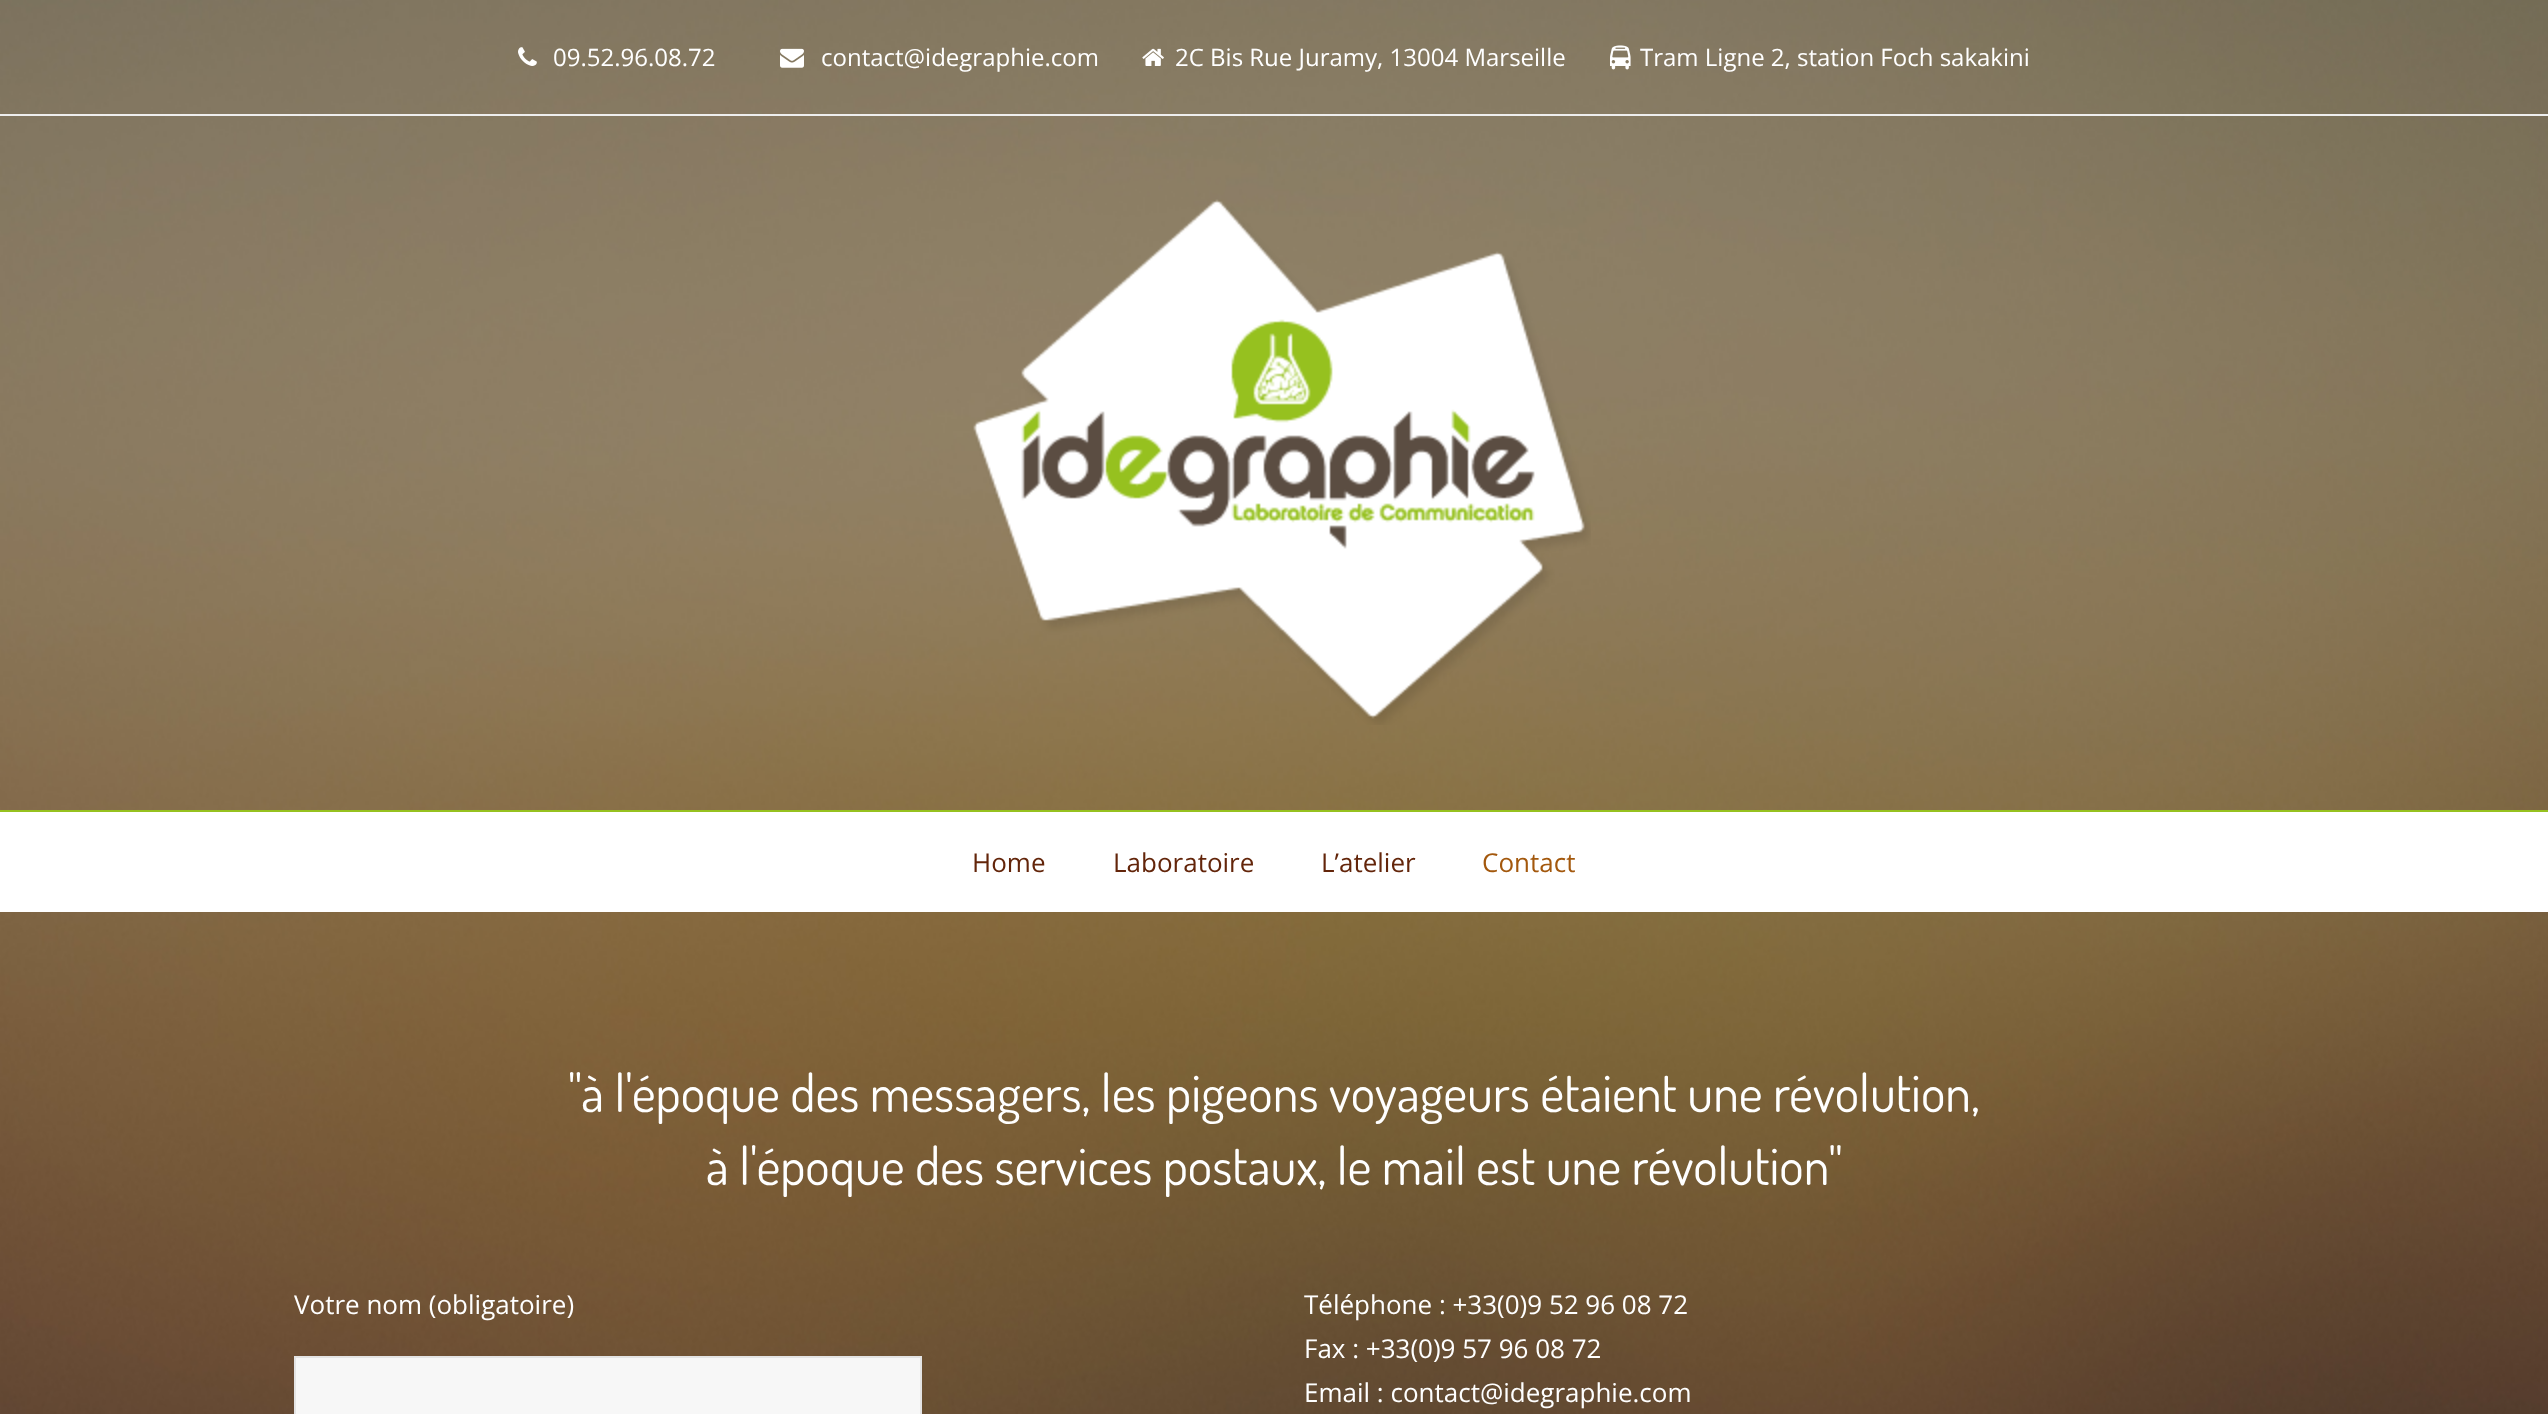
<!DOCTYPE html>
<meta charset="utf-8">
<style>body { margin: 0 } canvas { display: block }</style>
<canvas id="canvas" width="2548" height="1414"></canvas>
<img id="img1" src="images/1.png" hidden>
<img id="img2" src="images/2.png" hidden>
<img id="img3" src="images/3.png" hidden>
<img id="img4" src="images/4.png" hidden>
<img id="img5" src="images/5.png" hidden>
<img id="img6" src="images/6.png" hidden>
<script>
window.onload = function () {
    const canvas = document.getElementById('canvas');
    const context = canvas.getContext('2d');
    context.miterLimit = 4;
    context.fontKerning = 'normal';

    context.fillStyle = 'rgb(255, 255, 255)';
    context.fillRect(0, 0, 2548, 1414);
    context.drawImage(document.getElementById('img1'), 0, 0, 2548, 1414);
    context.fillStyle = 'rgb(238, 238, 238)';
    context.fillRect(0, 114, 2548, 2);
    context.drawImage(document.getElementById('img2'), 518, 47, 19, 19);
    context.drawImage(document.getElementById('img3'), 780, 48, 24, 20);
    context.drawImage(document.getElementById('img4'), 1142, 48, 22, 18);
    context.drawImage(document.getElementById('img5'), 1610, 45, 21, 25);
    context.drawImage(document.getElementById('img6'), 973, 199, 618, 526);
    context.fillStyle = 'rgb(255, 255, 255)';
    context.fillRect(0, 812, 2548, 100);
    context.fillStyle = 'rgb(150, 193, 31)';
    context.fillRect(0, 810, 2548, 2);
    context.fillStyle = 'rgb(247, 247, 247)';
    context.beginPath();
    context.rect(295, 1357, 626, 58);
    context.fill();
    context.strokeStyle = 'rgb(228, 228, 228)';
    context.lineWidth = 2;
    context.stroke();
    context.font = '24px Open Sans';
    context.fillStyle = 'rgb(255, 255, 255)';
    context.fillText('09.52.96.08.72', 553, 66);
    context.fillText('contact@idegraphie.com', 821, 66);
    context.fillText('2C Bis Rue Juramy, 13004 Marseille', 1175, 66);
    context.fillText('Tram Ligne 2, station Foch sakakini', 1640, 66);
    context.font = '26px Open Sans';
    context.fillStyle = 'rgb(99, 37, 10)';
    context.fillText('Home', 972, 872);
    context.fillText('Laboratoire', 1113, 872);
    context.fillText('L’atelier', 1321, 872);
    context.fillStyle = 'rgb(163, 88, 13)';
    context.fillText('Contact', 1482, 872);
    context.font = '52px Dosis';
    context.fillStyle = 'rgb(255, 255, 255)';
    context.fillText('"à l\'époque des messagers, les pigeons voyageurs étaient une révolution,', 568, 1112);
    context.fillText('à l\'époque des services postaux, le mail est une révolution"', 706, 1185);
    context.font = '26px Open Sans';
    context.fillText('Votre nom (obligatoire)', 294, 1314);
    context.fillText('Téléphone : +33(0)9 52 96 08 72', 1304, 1314);
    context.fillText('Fax : +33(0)9 57 96 08 72', 1304, 1358);
    context.fillText('Email : contact@idegraphie.com', 1304, 1402);
};
</script>
